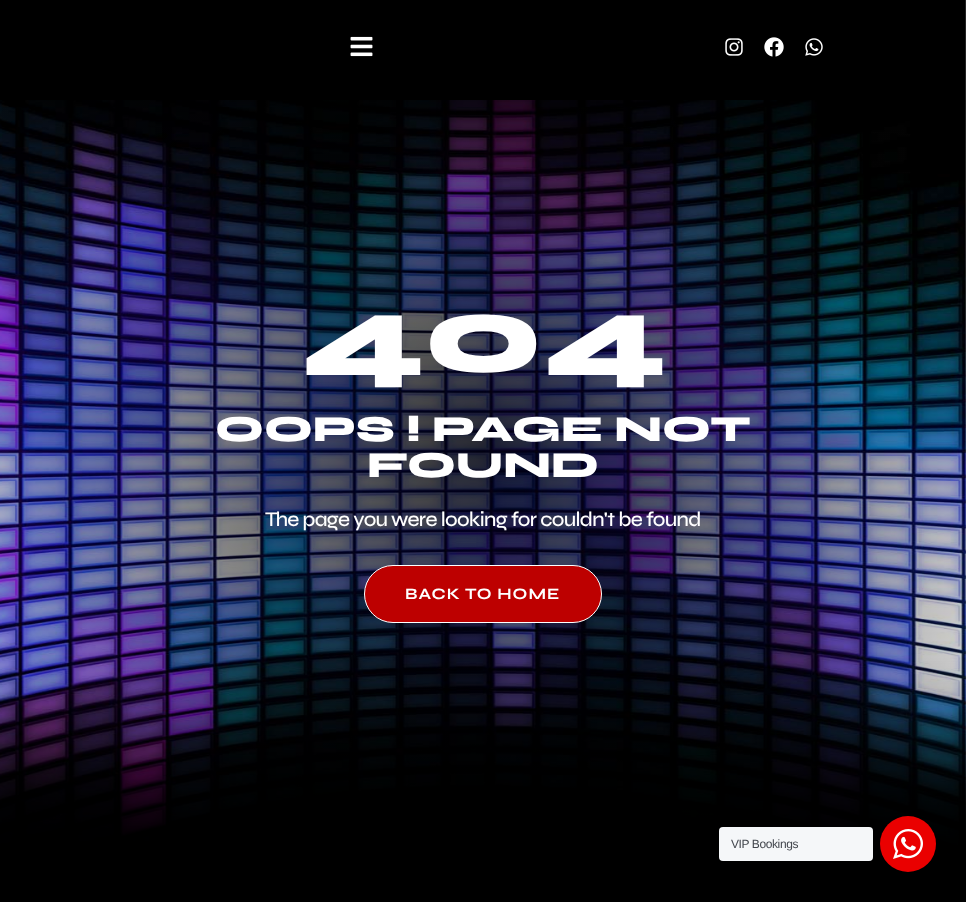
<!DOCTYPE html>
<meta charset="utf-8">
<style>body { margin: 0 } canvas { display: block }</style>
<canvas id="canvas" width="966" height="902"></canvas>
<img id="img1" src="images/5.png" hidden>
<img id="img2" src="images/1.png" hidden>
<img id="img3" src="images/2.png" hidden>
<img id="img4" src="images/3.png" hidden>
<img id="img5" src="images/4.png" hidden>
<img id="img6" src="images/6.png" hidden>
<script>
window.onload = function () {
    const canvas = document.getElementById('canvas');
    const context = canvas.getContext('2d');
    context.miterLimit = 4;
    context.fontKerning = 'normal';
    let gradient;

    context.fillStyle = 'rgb(255, 255, 255)';
    context.fillRect(0, 0, 966, 902);
    context.drawImage(document.getElementById('img1'), 0, 100, 966, 802);
    gradient = context.createRadialGradient(483, 482.81, 0, 483, 482.81, 683);
    gradient.addColorStop(0, 'rgba(0, 0, 0, 0.81)');
    gradient.addColorStop(1, 'rgba(0, 0, 0, 0)');
    context.fillStyle = gradient;
    context.beginPath();
    context.rect(0, 100, 966, 802);
    context.save();
    context.clip();
    context.scale(1, 638 / 683);
    context.fillRect(0, 0, 966, 966);
    context.restore();
    context.fillStyle = 'rgb(0, 0, 0)';
    context.filter = 'blur(50px)';
    context.beginPath();
    context.rect(0, 0, 966, 100);
    context.fill();
    context.filter = 'none';
    context.fillRect(0, 0, 965, 100);
    context.fillStyle = 'rgb(36, 36, 36)';
    context.fillRect(965, 0, 1, 100);
    context.drawImage(document.getElementById('img2'), 350, 36, 23, 21);
    context.drawImage(document.getElementById('img3'), 725, 38, 18, 18);
    context.drawImage(document.getElementById('img4'), 764, 37, 20, 20);
    context.drawImage(document.getElementById('img5'), 805, 38, 18, 18);
    context.fillStyle = 'rgb(189, 0, 0)';
    context.beginPath();
    context.roundRect(364.5, 565.5, 237, 57, 28.5);
    context.fill();
    context.strokeStyle = 'rgb(255, 255, 255)';
    context.stroke();
    context.fillStyle = 'rgb(0, 0, 0)';
    context.filter = 'blur(50px)';
    context.beginPath();
    context.rect(-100, 752, 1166, 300);
    context.fill();
    context.filter = 'none';
    context.fillStyle = 'rgb(245, 247, 249)';
    context.beginPath();
    context.roundRect(719, 827, 154, 34, 4);
    context.fill();
    context.fillStyle = 'rgb(234, 0, 0)';
    context.beginPath();
    context.arc(908, 844, 28, 0, 2 * Math.PI);
    context.fill();
    context.drawImage(document.getElementById('img6'), 893, 829, 30, 30);
    context.font = '800 112px Syne';
    context.fillStyle = 'rgb(255, 255, 255)';
    context.fillText('404', 301, 371);
    context.font = '800 36.75px Syne';
    context.fillText('OOPS ! PAGE NOT', 215, 441);
    context.fillText('FOUND', 367, 477);
    context.letterSpacing = '-0.7px';
    context.font = '500 20.8px Syne';
    context.fillText('The page you were looking for couldn\'t be found', 265, 526);
    context.letterSpacing = '1px';
    context.font = 'bold 16px Syne';
    context.fillText('BACK TO HOME', 405, 599);
    context.letterSpacing = '-0.4px';
    context.font = '12px Liberation Sans';
    context.fillStyle = 'rgb(67, 71, 78)';
    context.fillText('VIP Bookings', 731, 848);
};
</script>
